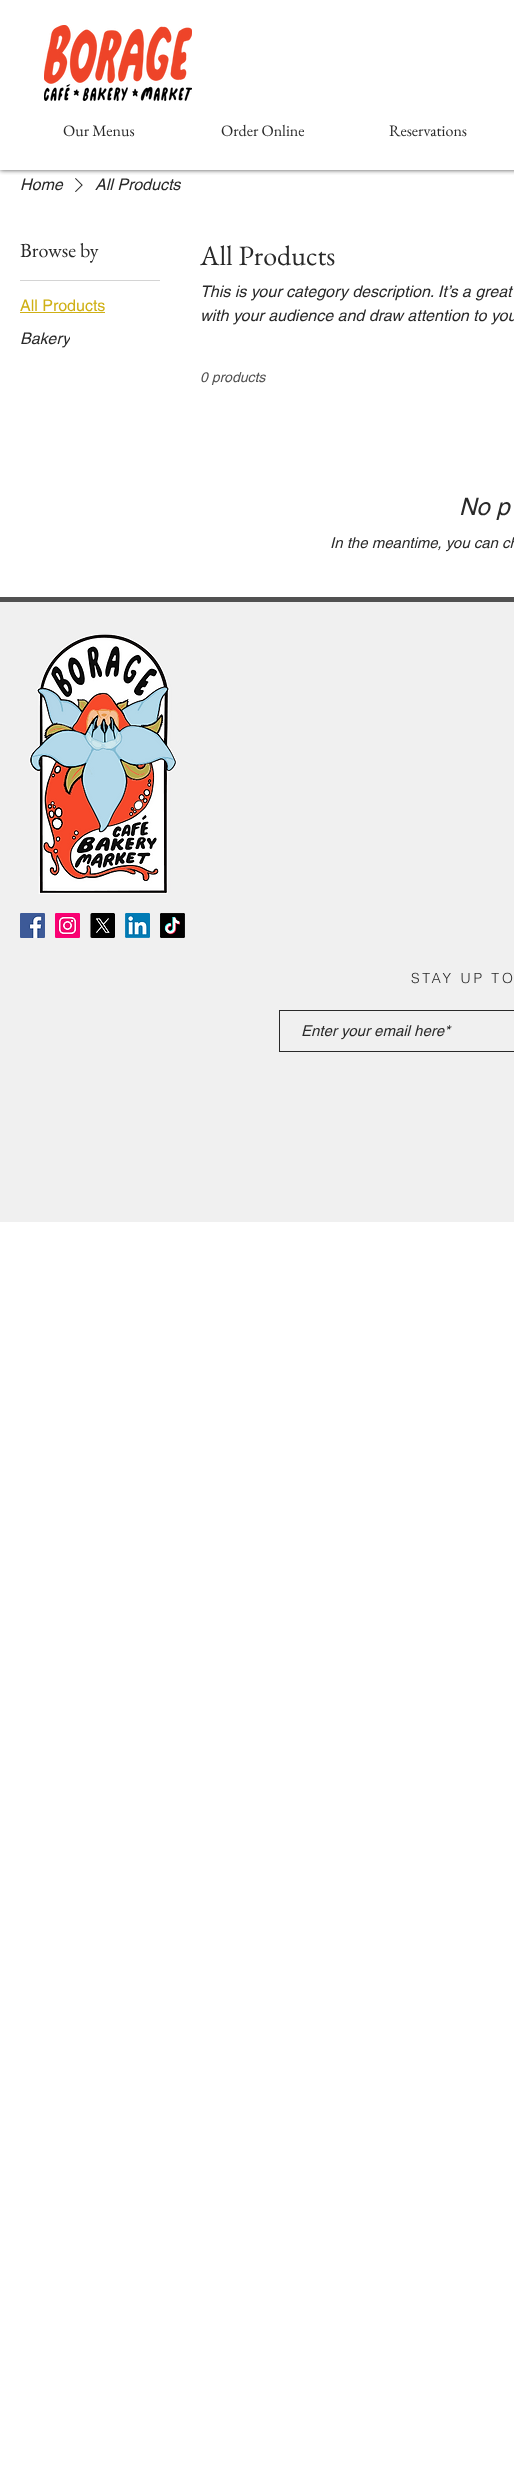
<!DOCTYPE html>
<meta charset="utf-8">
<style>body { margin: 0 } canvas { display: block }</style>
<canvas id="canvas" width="514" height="2485"></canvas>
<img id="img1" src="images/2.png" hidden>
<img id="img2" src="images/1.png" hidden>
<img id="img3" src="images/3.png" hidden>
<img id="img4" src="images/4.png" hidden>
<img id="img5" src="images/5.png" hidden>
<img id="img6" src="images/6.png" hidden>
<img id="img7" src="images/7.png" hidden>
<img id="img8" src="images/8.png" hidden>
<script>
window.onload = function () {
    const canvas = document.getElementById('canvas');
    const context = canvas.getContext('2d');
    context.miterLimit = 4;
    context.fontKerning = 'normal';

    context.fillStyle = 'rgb(255, 255, 255)';
    context.fillRect(0, 0, 514, 2485);
    context.drawImage(document.getElementById('img1'), 75, 178, 8, 14);
    context.save();
    context.beginPath();
    context.rect(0, 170, 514, 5);
    context.clip();
    context.fillStyle = 'rgba(0, 0, 0, 0.7)';
    context.filter = 'blur(2.5px)';
    context.beginPath();
    context.rect(0, 0, 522, 170);
    context.fill();
    context.filter = 'none';
    context.restore();
    context.drawImage(document.getElementById('img2'), 44, 25, 148, 76);
    context.fillStyle = 'rgb(212, 212, 212)';
    context.fillRect(20, 280, 140, 1);
    context.fillStyle = 'rgb(207, 176, 21)';
    context.fillRect(20, 312, 85, 1);
    context.fillStyle = 'rgb(240, 240, 240)';
    context.fillRect(0, 602, 514, 620);
    context.fillStyle = 'rgb(81, 81, 81)';
    context.fillRect(0, 597, 514, 5);
    context.drawImage(document.getElementById('img3'), 29, 634, 148, 260);
    context.drawImage(document.getElementById('img4'), 20, 913, 25, 25);
    context.drawImage(document.getElementById('img5'), 55, 913, 25, 25);
    context.drawImage(document.getElementById('img6'), 90, 913, 25, 25);
    context.drawImage(document.getElementById('img7'), 125, 913, 25, 25);
    context.drawImage(document.getElementById('img8'), 160, 913, 25, 25);
    context.strokeStyle = 'rgb(41, 41, 41)';
    context.strokeRect(279.5, 1010.5, 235, 41);
    context.font = '16px EB Garamond';
    context.fillStyle = 'rgb(41, 41, 41)';
    context.fillText('Our Menus', 63, 136);
    context.fillText('Order Online', 221, 136);
    context.fillText('Reservations', 389, 136);
    context.font = 'italic 16px helvetica';
    context.fillText('Home', 20, 190);
    context.fillText('All Products', 95, 190);
    context.font = '20px EB Garamond';
    context.fillText('Browse by', 20, 257);
    context.font = '16px helvetica';
    context.fillStyle = 'rgb(207, 176, 21)';
    context.fillText('All Products', 20, 311);
    context.save();
    context.beginPath();
    context.rect(20, 329, 50, 21);
    context.clip();
    context.font = 'italic 16px helvetica';
    context.fillStyle = 'rgb(41, 41, 41)';
    context.fillText('Bakery', 20, 344);
    context.restore();
    context.font = '28px EB Garamond';
    context.fillStyle = 'rgb(41, 41, 41)';
    context.fillText('All Products', 200, 265);
    context.font = 'italic 16px helvetica';
    context.fillText('This is your category description. It’s a great', 200, 297);
    context.fillText('with your audience and draw attention to you', 200, 321);
    context.font = 'italic 14px helvetica';
    context.fillStyle = 'rgb(81, 81, 81)';
    context.fillText('0 products', 200, 382);
    context.font = 'italic 24px helvetica';
    context.fillStyle = 'rgb(41, 41, 41)';
    context.fillText('No p', 459, 515);
    context.font = 'italic 15px helvetica';
    context.fillText('In the meantime, you can ch', 330, 548);
    context.letterSpacing = '2.75px';
    context.font = '300 14px helvetica';
    context.fillText('STAY UP TO', 411, 983);
    context.letterSpacing = '0px';
    context.font = 'italic 15px helvetica';
    context.fillText('Enter your email here*', 301, 1036);
};
</script>
